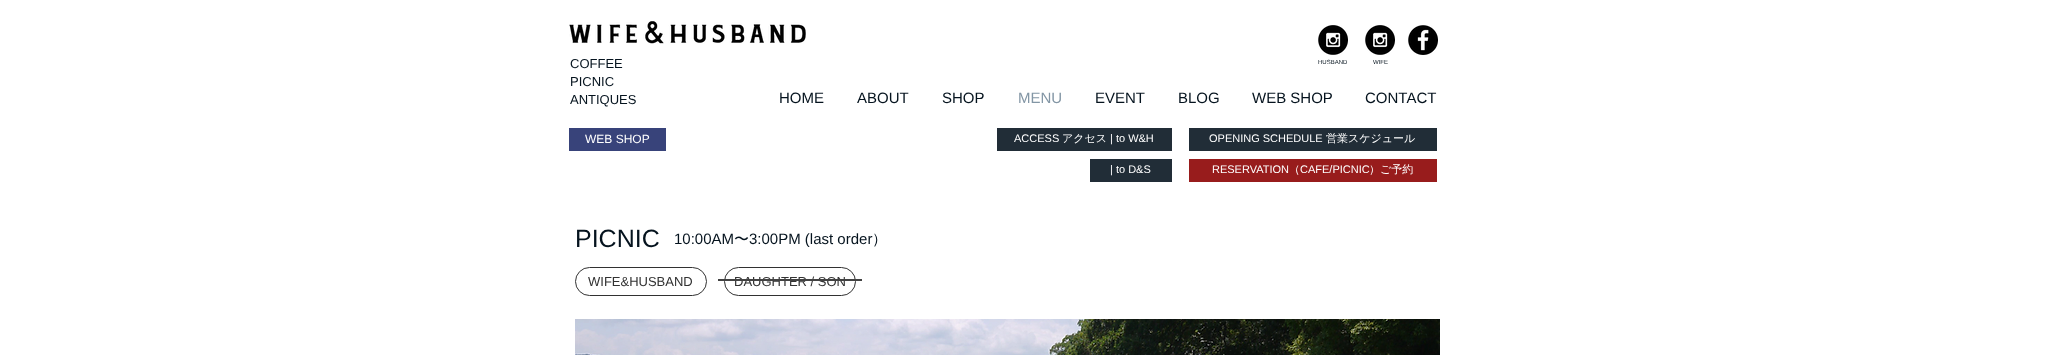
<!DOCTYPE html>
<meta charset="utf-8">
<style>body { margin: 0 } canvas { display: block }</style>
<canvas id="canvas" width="2053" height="355"></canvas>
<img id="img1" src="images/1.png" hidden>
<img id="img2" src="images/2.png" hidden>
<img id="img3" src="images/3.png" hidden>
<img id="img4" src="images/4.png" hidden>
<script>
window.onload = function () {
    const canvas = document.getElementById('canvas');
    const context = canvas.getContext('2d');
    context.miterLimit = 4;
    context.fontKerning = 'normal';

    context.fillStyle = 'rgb(255, 255, 255)';
    context.fillRect(0, 0, 2053, 355);
    context.drawImage(document.getElementById('img1'), 569, 21, 237, 23);
    context.drawImage(document.getElementById('img2'), 1318, 25, 30, 30);
    context.drawImage(document.getElementById('img2'), 1365, 25, 30, 30);
    context.drawImage(document.getElementById('img3'), 1408, 25, 30, 30);
    context.fillStyle = 'rgb(56, 67, 122)';
    context.fillRect(569, 128, 97, 23);
    context.fillStyle = 'rgb(33, 45, 55)';
    context.fillRect(997, 128, 175, 23);
    context.fillRect(1090, 159, 82, 23);
    context.fillRect(1189, 128, 248, 23);
    context.fillStyle = 'rgb(152, 28, 28)';
    context.fillRect(1189, 159, 248, 23);
    context.beginPath();
    context.roundRect(575.5, 267.5, 131, 28, 14);
    context.strokeStyle = 'rgb(50, 50, 50)';
    context.stroke();
    context.beginPath();
    context.roundRect(724.5, 267.5, 131, 28, 14);
    context.stroke();
    context.drawImage(document.getElementById('img4'), 575, 319, 865, 36);
    context.font = '13px Liberation Sans';
    context.fillStyle = 'rgb(5, 19, 30)';
    context.fillText('COFFEE', 570, 68);
    context.fillText('PICNIC', 570, 86);
    context.fillText('ANTIQUES', 570, 104);
    context.font = '6px Liberation Sans';
    context.fillText('HUSBAND', 1318, 64);
    context.fillText('WIFE', 1373, 64);
    context.font = '15px Liberation Sans';
    context.fillText('HOME', 779, 103);
    context.fillText('ABOUT', 857, 103);
    context.fillText('SHOP', 942, 103);
    context.fillStyle = 'rgb(131, 150, 165)';
    context.fillText('MENU', 1018, 103);
    context.fillStyle = 'rgb(5, 19, 30)';
    context.fillText('EVENT', 1095, 103);
    context.fillText('BLOG', 1178, 103);
    context.fillText('WEB SHOP', 1252, 103);
    context.fillText('CONTACT', 1365, 103);
    context.font = '12px Liberation Sans';
    context.fillStyle = 'rgb(255, 255, 255)';
    context.fillText('WEB SHOP', 585, 143);
    context.font = '11px Liberation Sans';
    context.fillText('ACCESS', 1014, 142);
    context.font = '500 11px WenQuanYi Zen Hei';
    context.fillText('アクセス', 1062, 142);
    context.font = '11px Liberation Sans';
    context.fillText('| to W&H', 1110, 142);
    context.fillText('| to D&S', 1110, 173);
    context.fillText('OPENING SCHEDULE', 1209, 142);
    context.font = '500 11px WenQuanYi Zen Hei';
    context.fillText('営業スケジュール', 1326, 142);
    context.font = '11px Liberation Sans';
    context.fillText('RESERVATION', 1212, 173);
    context.font = '500 11px WenQuanYi Zen Hei';
    context.fillText('（', 1289, 173);
    context.font = '11px Liberation Sans';
    context.fillText('CAFE/PICNIC', 1300, 173);
    context.font = '500 11px WenQuanYi Zen Hei';
    context.fillText('）ご予約', 1369, 173);
    context.font = '25px Liberation Sans';
    context.fillStyle = 'rgb(5, 19, 30)';
    context.fillText('PICNIC', 575, 247);
    context.font = '15px Liberation Sans';
    context.fillText('10:00AM', 674, 244);
    context.font = '500 15px WenQuanYi Zen Hei';
    context.fillText('〜', 734, 244);
    context.font = '15px Liberation Sans';
    context.fillText('3:00PM (last order', 749, 244);
    context.font = '500 15px WenQuanYi Zen Hei';
    context.fillText('）', 872, 244);
    context.font = '13px Liberation Sans';
    context.fillStyle = 'rgb(50, 50, 50)';
    context.fillText('WIFE&HUSBAND', 588, 286);
    context.fillText('DAUGHTER / SON', 734, 286);
    context.fillStyle = 'rgb(66, 66, 66)';
    context.fillRect(718, 279, 144, 2);
};
</script>
